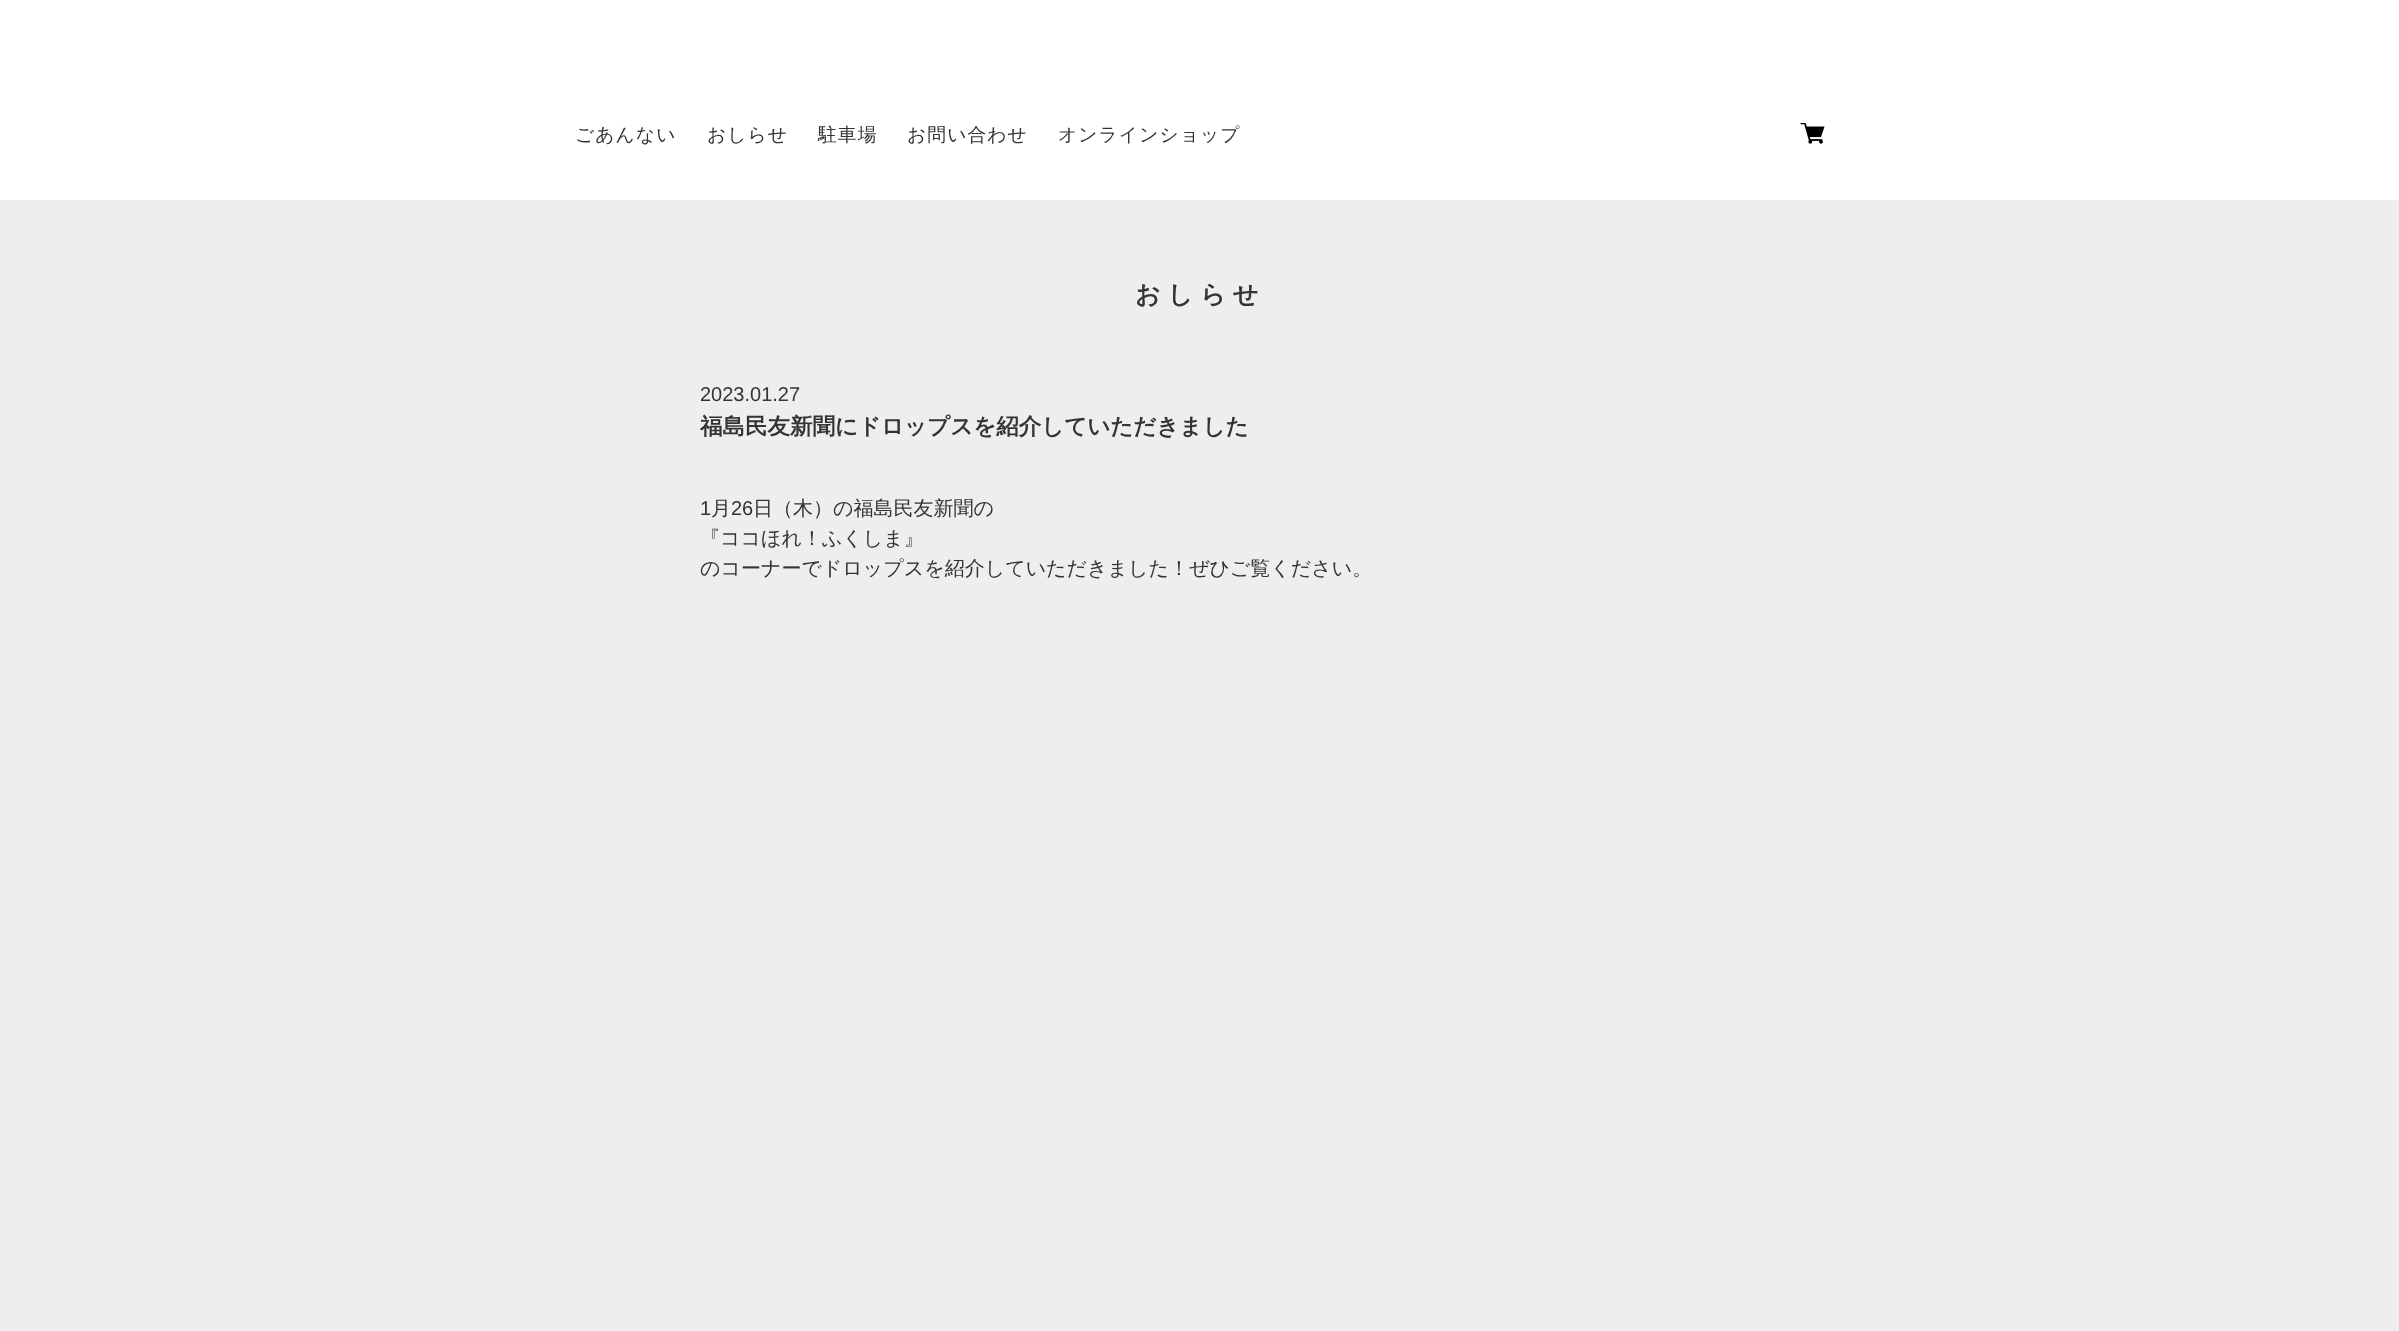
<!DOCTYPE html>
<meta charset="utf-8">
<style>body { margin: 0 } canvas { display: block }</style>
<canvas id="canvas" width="2399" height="1331"></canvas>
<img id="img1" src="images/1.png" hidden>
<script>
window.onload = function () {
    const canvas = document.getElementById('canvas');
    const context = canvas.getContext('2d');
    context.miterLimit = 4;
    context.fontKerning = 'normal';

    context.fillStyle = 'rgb(255, 255, 255)';
    context.fillRect(0, 0, 2399, 1331);
    context.drawImage(document.getElementById('img1'), 1800, 123, 25, 21);
    context.fillStyle = 'rgb(238, 238, 238)';
    context.fillRect(0, 200, 2399, 1131);
    context.letterSpacing = '1.1px';
    context.font = '500 18.75px WenQuanYi Zen Hei';
    context.fillStyle = 'rgb(51, 51, 51)';
    context.fillText('ごあんない', 575, 141);
    context.fillText('おしらせ', 707, 141);
    context.fillText('駐車場', 818, 141);
    context.fillText('お問い合わせ', 907, 141);
    context.fillText('オンラインショップ', 1058, 141);
    context.letterSpacing = '7px';
    context.font = 'bold 25px WenQuanYi Zen Hei';
    context.fillText('おしらせ', 1135, 303);
    context.letterSpacing = '0px';
    context.font = '20px Liberation Sans';
    context.fillText('2023.01.27', 700, 401);
    context.font = 'bold 22.5px WenQuanYi Zen Hei';
    context.fillText('福島民友新聞にドロップスを紹介していただきました', 700, 434);
    context.font = '20px Liberation Sans';
    context.fillText('1', 700, 515);
    context.font = '500 20px WenQuanYi Zen Hei';
    context.fillText('月', 711, 515);
    context.font = '20px Liberation Sans';
    context.fillText('26', 731, 515);
    context.font = '500 20px WenQuanYi Zen Hei';
    context.fillText('日（木）の福島民友新聞の', 753, 515);
    context.fillText('『ココほれ！ふくしま』', 700, 545);
    context.fillText('のコーナーでドロップスを紹介していただきました！ぜひご覧ください。', 700, 575);
};
</script>
